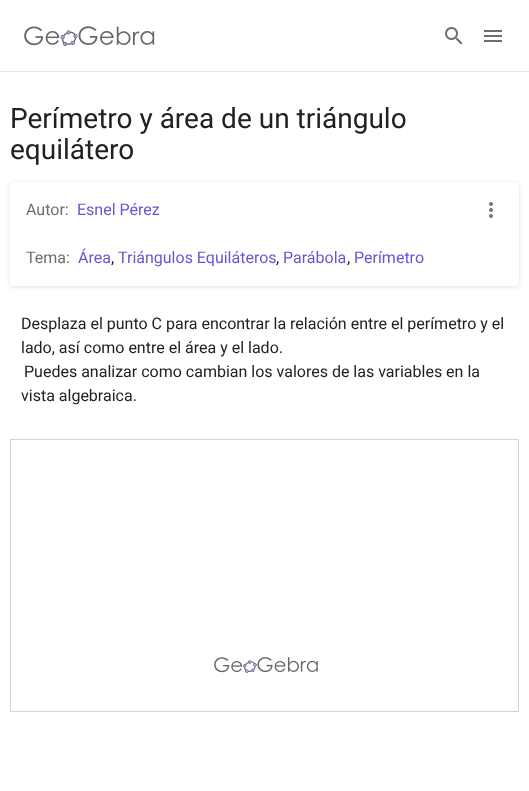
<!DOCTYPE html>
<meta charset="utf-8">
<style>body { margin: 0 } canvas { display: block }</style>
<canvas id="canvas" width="529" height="791"></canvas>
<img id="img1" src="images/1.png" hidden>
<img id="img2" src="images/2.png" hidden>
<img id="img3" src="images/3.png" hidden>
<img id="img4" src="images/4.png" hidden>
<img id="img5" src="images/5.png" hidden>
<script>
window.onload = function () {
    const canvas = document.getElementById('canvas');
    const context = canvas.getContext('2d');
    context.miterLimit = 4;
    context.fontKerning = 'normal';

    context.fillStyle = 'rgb(255, 255, 255)';
    context.fillRect(0, 0, 529, 791);
    context.fillStyle = 'rgb(230, 230, 235)';
    context.fillRect(0, 71, 529, 1);
    context.drawImage(document.getElementById('img1'), 24, 26, 131, 20);
    context.drawImage(document.getElementById('img2'), 445, 27, 18, 18);
    context.drawImage(document.getElementById('img3'), 484, 30, 18, 12);
    context.fillStyle = 'rgba(28, 28, 31, 0.14)';
    context.filter = 'blur(2px)';
    context.beginPath();
    context.roundRect(10, 183, 509, 104, 4);
    context.fill();
    context.filter = 'none';
    context.fillStyle = 'rgb(255, 255, 255)';
    context.beginPath();
    context.roundRect(10, 182, 509, 104, 4);
    context.fill();
    context.drawImage(document.getElementById('img4'), 489, 202, 4, 16);
    context.drawImage(document.getElementById('img5'), 214, 657, 104, 16);
    context.strokeStyle = 'rgb(211, 211, 211)';
    context.strokeRect(10.5, 439.5, 508, 272);
    context.font = '28px Roboto';
    context.fillStyle = 'rgb(33, 33, 33)';
    context.fillText('Perímetro y área de un triángulo', 10, 128);
    context.fillText('equilátero', 10, 159);
    context.font = '16px Roboto';
    context.fillStyle = 'rgb(110, 109, 115)';
    context.fillText('Autor:', 26, 215);
    context.fillStyle = 'rgb(101, 87, 210)';
    context.fillText('Esnel Pérez', 77, 215);
    context.fillStyle = 'rgb(110, 109, 115)';
    context.fillText('Tema:', 26, 263);
    context.fillStyle = 'rgb(101, 87, 210)';
    context.fillText('Área', 78, 263);
    context.fillStyle = 'rgb(33, 33, 33)';
    context.fillText(',', 111, 263);
    context.fillStyle = 'rgb(101, 87, 210)';
    context.fillText('Triángulos Equiláteros', 118, 263);
    context.fillStyle = 'rgb(33, 33, 33)';
    context.fillText(',', 276, 263);
    context.fillStyle = 'rgb(101, 87, 210)';
    context.fillText('Parábola', 283, 263);
    context.fillStyle = 'rgb(33, 33, 33)';
    context.fillText(',', 347, 263);
    context.fillStyle = 'rgb(101, 87, 210)';
    context.fillText('Perímetro', 354, 263);
    context.fillStyle = 'rgb(33, 33, 33)';
    context.fillText('Desplaza el punto C para encontrar la relación entre el perímetro y el', 21, 329);
    context.fillText('lado, así como entre el área y el lado.', 21, 353);
    context.fillText('Puedes analizar como cambian los valores de las variables en la', 24, 377);
    context.fillText('vista algebraica.', 21, 401);
};
</script>
